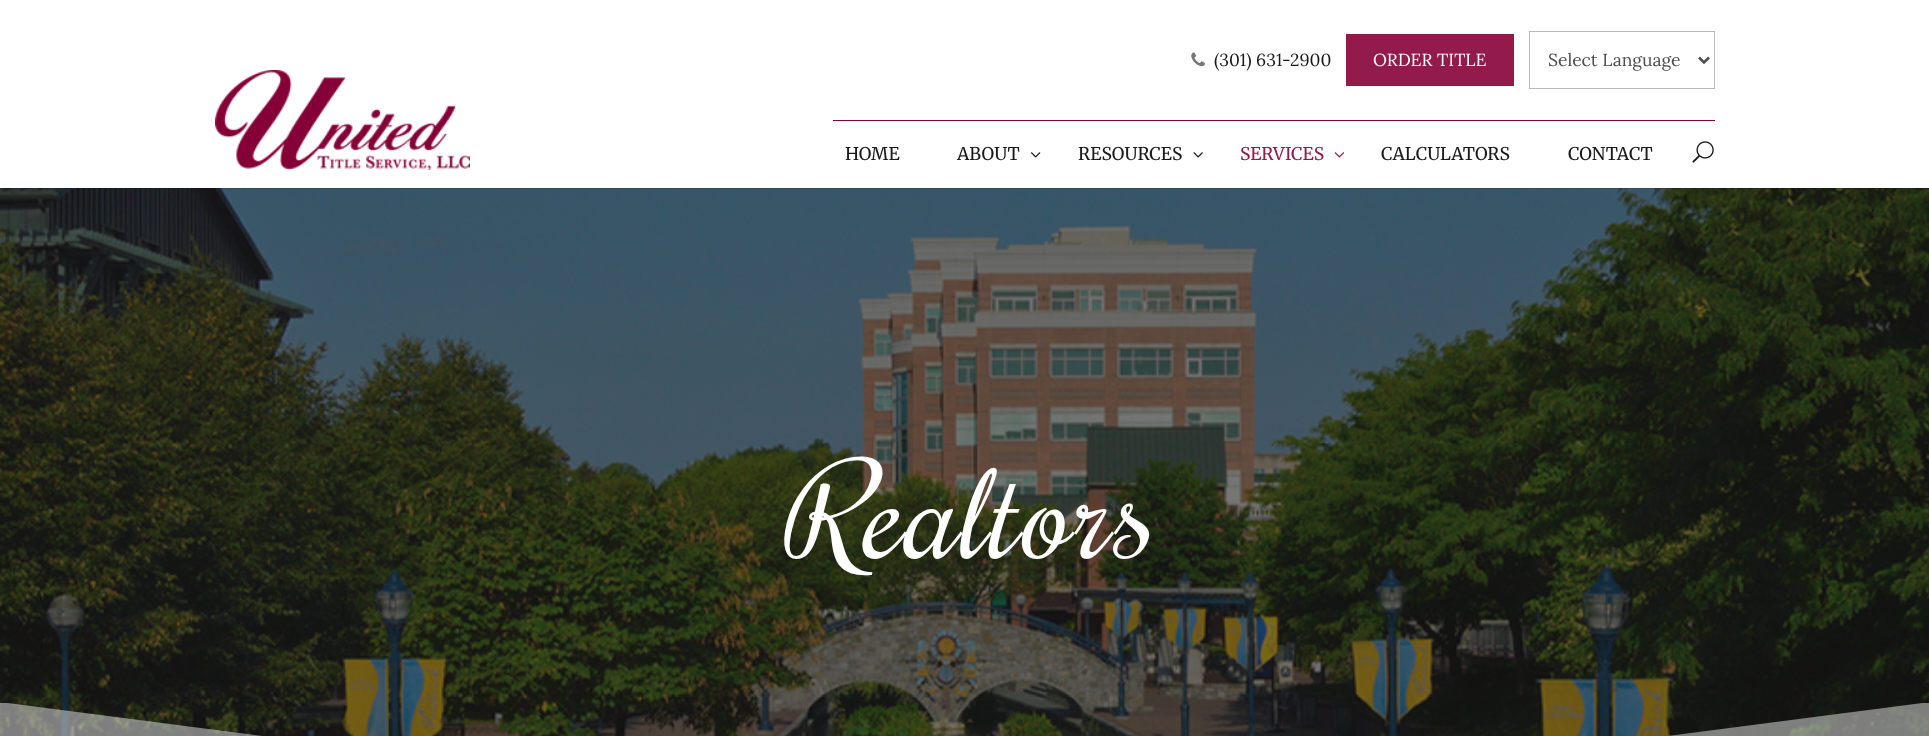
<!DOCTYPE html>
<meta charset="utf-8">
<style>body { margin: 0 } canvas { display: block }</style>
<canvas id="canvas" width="1929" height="736"></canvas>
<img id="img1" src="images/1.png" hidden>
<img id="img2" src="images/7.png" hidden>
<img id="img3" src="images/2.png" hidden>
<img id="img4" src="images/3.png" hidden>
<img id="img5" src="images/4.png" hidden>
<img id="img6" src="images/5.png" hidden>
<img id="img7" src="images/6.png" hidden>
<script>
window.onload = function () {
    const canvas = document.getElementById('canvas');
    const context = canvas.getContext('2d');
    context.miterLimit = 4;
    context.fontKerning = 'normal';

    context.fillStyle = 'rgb(255, 255, 255)';
    context.fillRect(0, 0, 1929, 736);
    context.drawImage(document.getElementById('img1'), 1191, 52, 14, 15);
    context.fillStyle = 'rgb(146, 27, 76)';
    context.fillRect(1346, 34, 168, 52);
    context.strokeStyle = 'rgb(187, 187, 187)';
    context.strokeRect(1529.5, 31.5, 185, 57);
    context.beginPath();
    context.moveTo(1699, 57.5);
    context.lineTo(1704, 62.5);
    context.lineTo(1709, 57.5);
    context.strokeStyle = 'rgb(78, 78, 78)';
    context.lineWidth = 2.5;
    context.stroke();
    context.drawImage(document.getElementById('img2'), 0, 188, 1929, 548);
    context.fillStyle = 'rgba(0, 0, 0, 0.1)';
    context.fillRect(0, 188, 1929, 1);
    context.drawImage(document.getElementById('img3'), 215, 70, 255, 100);
    context.fillStyle = 'rgb(134, 0, 56)';
    context.fillRect(833, 120, 882, 1);
    context.drawImage(document.getElementById('img4'), 1031, 152, 10, 6);
    context.drawImage(document.getElementById('img5'), 1193, 152, 10, 6);
    context.drawImage(document.getElementById('img6'), 1334, 152, 10, 6);
    context.drawImage(document.getElementById('img7'), 1692, 141, 22, 22);
    context.save();
    context.beginPath();
    context.rect(0, 703, 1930, 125);
    context.clip();
    context.fillStyle = 'rgba(233, 233, 233, 0.5)';
    context.beginPath();
    context.moveTo(965, 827);
    context.lineTo(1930, 702);
    context.lineTo(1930, 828);
    context.lineTo(0, 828);
    context.lineTo(0, 702);
    context.closePath();
    context.fill();
    context.restore();
    context.font = '17.5px Lora';
    context.fillStyle = 'rgb(26, 26, 26)';
    context.fillText('(301) 631-2900', 1214, 66);
    context.fillStyle = 'rgb(255, 255, 255)';
    context.fillText('ORDER TITLE', 1373, 66);
    context.fillStyle = 'rgb(78, 78, 78)';
    context.fillText('Select Language', 1548, 66);
    context.font = '17.5px Merriweather';
    context.fillStyle = 'rgb(26, 26, 26)';
    context.fillText('HOME', 845, 160);
    context.fillText('ABOUT', 957, 160);
    context.fillText('RESOURCES', 1078, 160);
    context.fillStyle = 'rgb(146, 26, 76)';
    context.fillText('SERVICES', 1240, 160);
    context.fillStyle = 'rgb(26, 26, 26)';
    context.fillText('CALCULATORS', 1381, 160);
    context.fillText('CONTACT', 1568, 160);
    context.letterSpacing = '2.5px';
    context.font = 'italic 125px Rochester';
    context.fillStyle = 'rgb(255, 255, 255)';
    context.fillText('Realtors', 779, 559);
};
</script>
